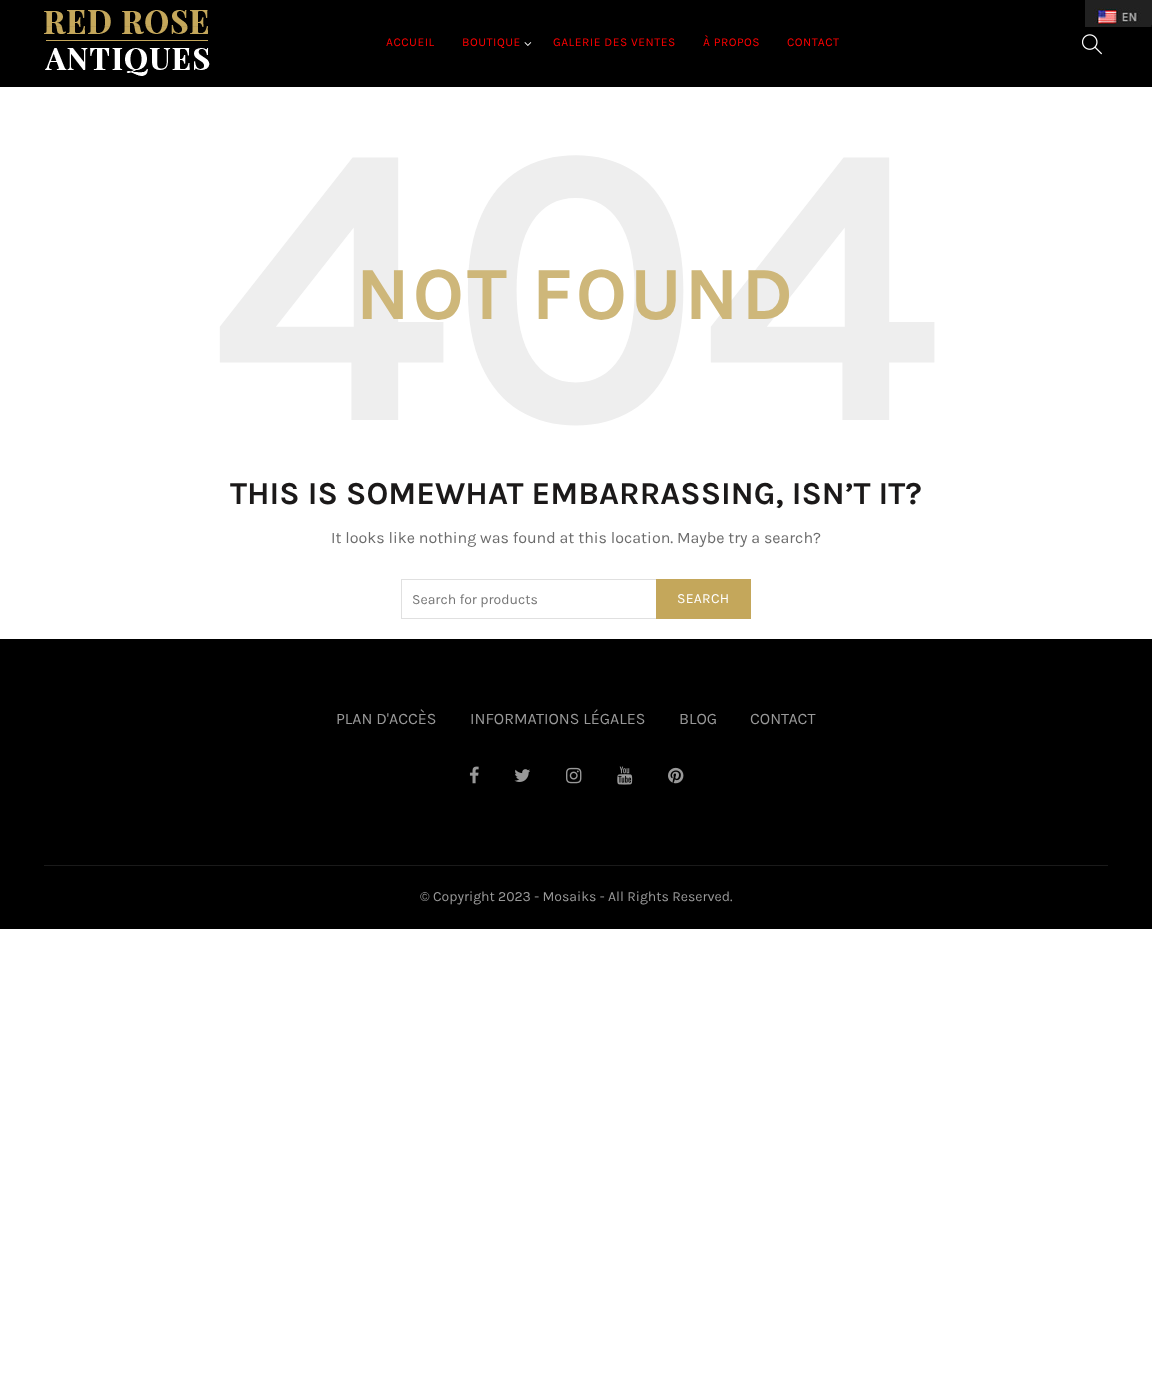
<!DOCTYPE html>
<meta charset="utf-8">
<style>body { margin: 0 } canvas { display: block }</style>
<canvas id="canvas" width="1152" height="1395"></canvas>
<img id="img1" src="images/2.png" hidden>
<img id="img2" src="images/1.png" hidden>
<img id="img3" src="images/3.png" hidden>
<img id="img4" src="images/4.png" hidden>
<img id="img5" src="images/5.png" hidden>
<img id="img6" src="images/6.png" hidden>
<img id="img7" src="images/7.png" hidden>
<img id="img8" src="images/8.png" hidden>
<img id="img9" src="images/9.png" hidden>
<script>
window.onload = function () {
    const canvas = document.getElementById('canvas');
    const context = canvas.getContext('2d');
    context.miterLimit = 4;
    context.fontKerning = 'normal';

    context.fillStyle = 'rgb(255, 255, 255)';
    context.fillRect(0, 0, 1152, 1395);
    context.fillStyle = 'rgb(0, 0, 0)';
    context.fillRect(0, 0, 1152, 87);
    context.drawImage(document.getElementById('img1'), 44, 10, 166, 66);
    context.fillStyle = 'rgba(0, 0, 0, 0.05)';
    context.fillRect(46, 26, 162, 1);
    context.drawImage(document.getElementById('img2'), 1085, 0, 67, 27);
    context.drawImage(document.getElementById('img3'), 524, 42, 8, 4);
    context.drawImage(document.getElementById('img4'), 1082, 34, 20, 21);
    context.strokeStyle = 'rgb(224, 224, 224)';
    context.strokeRect(401.5, 579.5, 349, 39);
    context.fillStyle = 'rgb(196, 167, 91)';
    context.fillRect(656, 579, 95, 40);
    context.fillStyle = 'rgb(0, 0, 0)';
    context.fillRect(0, 639, 1152, 290);
    context.drawImage(document.getElementById('img5'), 469, 766, 10, 18);
    context.drawImage(document.getElementById('img6'), 514, 769, 16, 13);
    context.drawImage(document.getElementById('img7'), 566, 767, 16, 17);
    context.drawImage(document.getElementById('img8'), 617, 766, 16, 19);
    context.drawImage(document.getElementById('img9'), 668, 767, 16, 17);
    context.fillStyle = 'rgb(26, 26, 26)';
    context.fillRect(44, 865, 1064, 1);
    context.letterSpacing = '0.5px';
    context.font = '12px Karla';
    context.fillStyle = 'rgb(255, 0, 0)';
    context.fillText('ACCUEIL', 386, 46);
    context.fillText('BOUTIQUE', 462, 46);
    context.fillText('GALERIE DES VENTES', 553, 46);
    context.fillText('À PROPOS', 703, 46);
    context.fillText('CONTACT', 787, 46);
    context.letterSpacing = '0px';
    context.font = 'bold 400px Karla';
    context.fillStyle = 'rgb(238, 238, 238)';
    context.fillText('404', 211, 420);
    context.letterSpacing = '3px';
    context.font = 'bold 75px Karla';
    context.fillStyle = 'rgb(206, 183, 122)';
    context.fillText('NOT FOUND', 356, 319);
    context.letterSpacing = '0px';
    context.font = 'bold 32px Karla';
    context.fillStyle = 'rgb(27, 25, 25)';
    context.fillText('THIS IS SOMEWHAT EMBARRASSING, ISN’T IT?', 230, 504);
    context.font = '16px Karla';
    context.fillStyle = 'rgb(108, 108, 108)';
    context.fillText('It looks like nothing was found at this location. Maybe try a search?', 331, 543);
    context.font = '14px Karla';
    context.fillStyle = 'rgb(117, 117, 117)';
    context.fillText('Search for products', 412, 604);
    context.letterSpacing = '0.25px';
    context.fillStyle = 'rgb(255, 255, 255)';
    context.fillText('SEARCH', 677, 603);
    context.letterSpacing = '0px';
    context.font = '16px Karla';
    context.fillStyle = 'rgb(153, 153, 153)';
    context.fillText('PLAN D\'ACCÈS', 336, 724);
    context.fillText('INFORMATIONS LÉGALES', 470, 724);
    context.fillText('BLOG', 679, 724);
    context.fillText('CONTACT', 750, 724);
    context.font = '14px Karla';
    context.fillText('© Copyright 2023 - Mosaiks - All Rights Reserved.', 420, 901);
};
</script>
